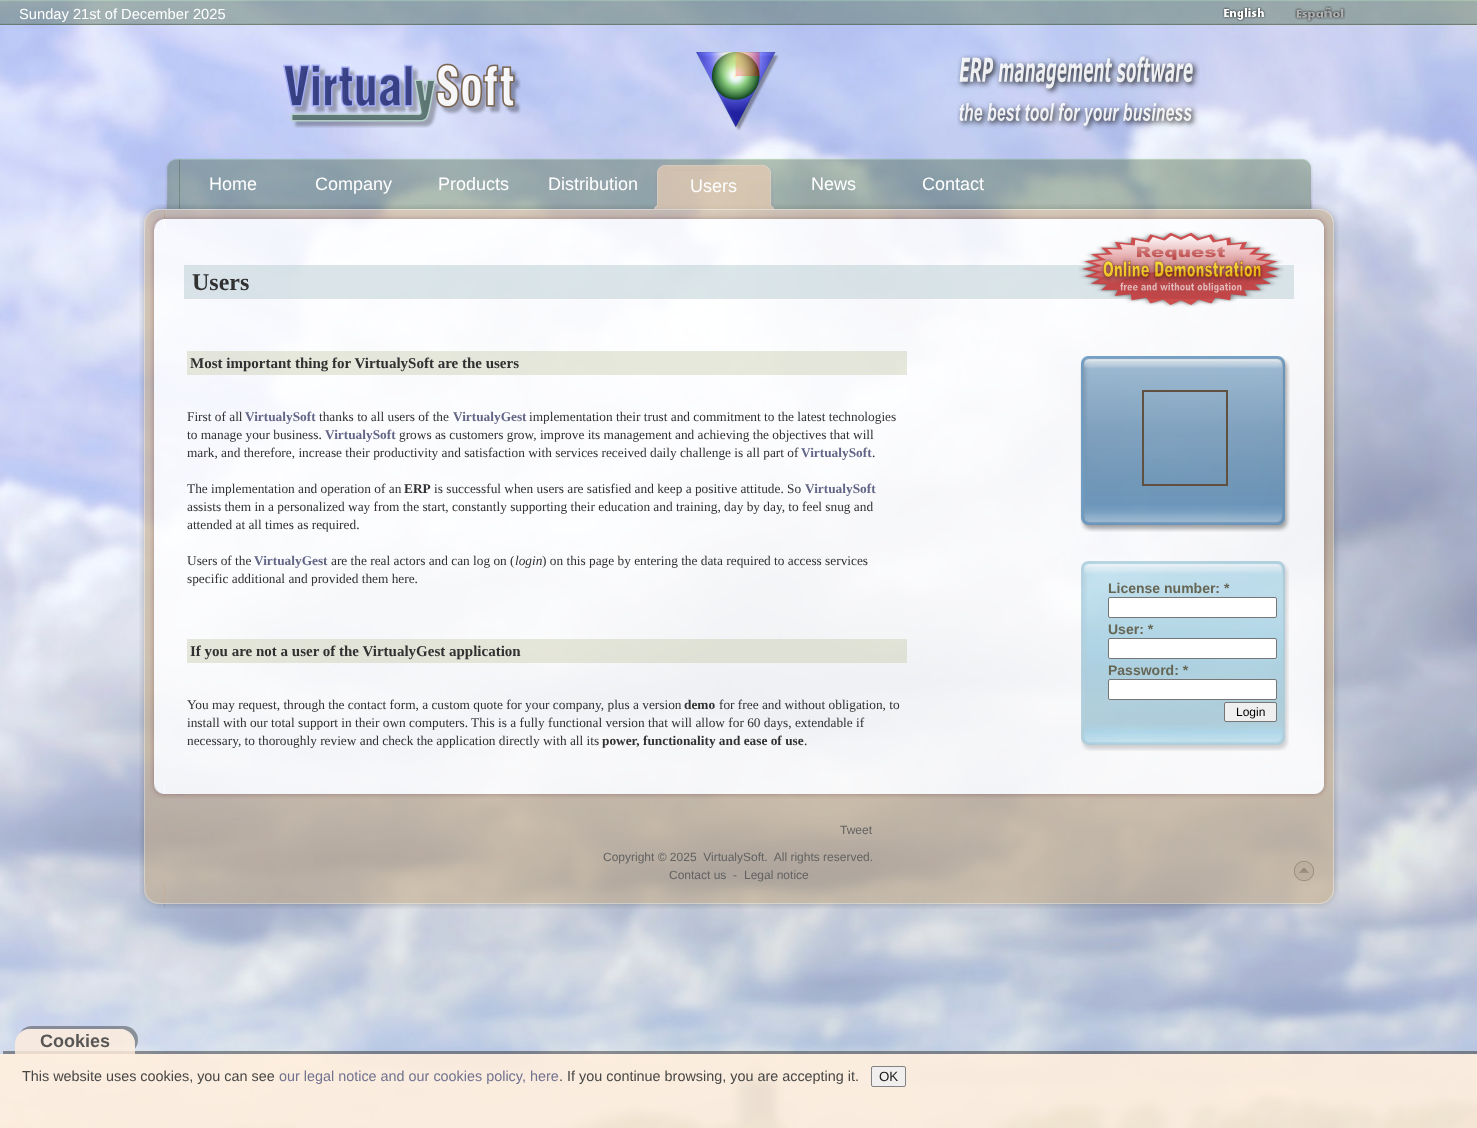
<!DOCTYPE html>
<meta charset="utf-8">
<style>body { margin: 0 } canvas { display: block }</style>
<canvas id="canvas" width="1477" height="1128"></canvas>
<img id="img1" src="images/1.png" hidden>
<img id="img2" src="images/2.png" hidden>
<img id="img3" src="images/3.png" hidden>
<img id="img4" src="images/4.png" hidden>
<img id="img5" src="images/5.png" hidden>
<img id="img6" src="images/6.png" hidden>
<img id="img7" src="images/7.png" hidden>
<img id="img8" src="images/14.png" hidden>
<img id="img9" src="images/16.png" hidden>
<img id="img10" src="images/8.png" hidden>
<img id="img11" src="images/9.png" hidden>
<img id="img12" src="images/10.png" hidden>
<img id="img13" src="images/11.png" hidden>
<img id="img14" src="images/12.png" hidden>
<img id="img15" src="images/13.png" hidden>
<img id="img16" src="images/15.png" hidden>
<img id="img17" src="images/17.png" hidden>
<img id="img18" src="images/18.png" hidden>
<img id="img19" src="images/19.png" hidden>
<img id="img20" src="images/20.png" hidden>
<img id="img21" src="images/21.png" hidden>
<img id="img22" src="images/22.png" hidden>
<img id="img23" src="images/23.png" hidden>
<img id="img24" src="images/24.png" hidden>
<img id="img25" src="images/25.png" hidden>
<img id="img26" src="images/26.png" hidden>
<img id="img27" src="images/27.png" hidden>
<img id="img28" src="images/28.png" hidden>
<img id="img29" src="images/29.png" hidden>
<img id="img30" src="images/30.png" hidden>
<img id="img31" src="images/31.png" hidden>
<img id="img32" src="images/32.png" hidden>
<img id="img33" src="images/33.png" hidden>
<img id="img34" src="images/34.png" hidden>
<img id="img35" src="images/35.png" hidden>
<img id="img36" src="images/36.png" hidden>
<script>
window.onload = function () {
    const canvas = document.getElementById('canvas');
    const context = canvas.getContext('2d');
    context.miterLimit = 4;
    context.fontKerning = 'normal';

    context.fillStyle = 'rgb(255, 255, 255)';
    context.fillRect(0, 0, 1477, 1128);
    context.drawImage(document.getElementById('img1'), 0, 0, 1477, 1128);
    context.drawImage(document.getElementById('img2'), 0, 0, 1477, 25);
    context.drawImage(document.getElementById('img3'), 1222, 7, 44, 15);
    context.drawImage(document.getElementById('img4'), 1294, 6, 52, 16);
    context.drawImage(document.getElementById('img5'), 283, 63, 238, 65);
    context.drawImage(document.getElementById('img6'), 696, 52, 83, 79);
    context.drawImage(document.getElementById('img7'), 957, 54, 243, 78);
    context.drawImage(document.getElementById('img8'), 139, 204, 26, 25);
    context.drawImage(document.getElementById('img9'), 164, 204, 1150, 25);
    context.drawImage(document.getElementById('img10'), 165, 158, 15, 51);
    context.drawImage(document.getElementById('img11'), 1299, 158, 14, 51);
    context.drawImage(document.getElementById('img12'), 179, 158, 1120, 51);
    context.drawImage(document.getElementById('img13'), 654, 165, 120, 44);
    context.drawImage(document.getElementById('img14'), 654, 165, 120, 44);
    context.drawImage(document.getElementById('img15'), 654, 165, 120, 44);
    context.drawImage(document.getElementById('img16'), 1314, 204, 25, 25);
    context.drawImage(document.getElementById('img17'), 139, 229, 10, 655);
    context.drawImage(document.getElementById('img18'), 1329, 229, 10, 655);
    context.drawImage(document.getElementById('img19'), 149, 229, 15, 555);
    context.drawImage(document.getElementById('img20'), 1314, 229, 15, 555);
    context.fillStyle = 'rgba(255, 255, 255, 0.85)';
    context.fillRect(164, 229, 1150, 555);
    context.fillStyle = 'rgba(164, 190, 198, 0.38)';
    context.fillRect(184, 265, 1110, 34);
    context.drawImage(document.getElementById('img21'), 1078, 231, 206, 76);
    context.fillStyle = 'rgba(195, 198, 164, 0.38)';
    context.fillRect(187, 351, 720, 24);
    context.fillRect(187, 639, 720, 24);
    context.drawImage(document.getElementById('img22'), 1091, 356, 199, 148);
    context.drawImage(document.getElementById('img23'), 1080, 356, 11, 148);
    context.fillStyle = 'rgb(96, 80, 64)';
    context.fillRect(1142, 390, 86, 2);
    context.fillRect(1226, 390, 2, 96);
    context.fillRect(1142, 484, 86, 2);
    context.fillRect(1142, 390, 2, 96);
    context.drawImage(document.getElementById('img24'), 1091, 504, 199, 28);
    context.drawImage(document.getElementById('img25'), 1080, 504, 11, 28);
    context.drawImage(document.getElementById('img26'), 1091, 561, 198, 163);
    context.drawImage(document.getElementById('img27'), 1081, 561, 10, 163);
    context.fillStyle = 'rgb(255, 255, 255)';
    context.beginPath();
    context.roundRect(1108.5, 597.5, 168, 20, 1.5);
    context.fill();
    context.strokeStyle = 'rgb(118, 118, 118)';
    context.stroke();
    context.beginPath();
    context.roundRect(1108.5, 638.5, 168, 20, 1.5);
    context.fill();
    context.stroke();
    context.beginPath();
    context.roundRect(1108.5, 679.5, 168, 20, 1.5);
    context.fill();
    context.stroke();
    context.fillStyle = 'rgb(239, 239, 239)';
    context.beginPath();
    context.roundRect(1224.5, 702.5, 52, 19, 1.5);
    context.fill();
    context.stroke();
    context.drawImage(document.getElementById('img28'), 1091, 724, 198, 27);
    context.drawImage(document.getElementById('img29'), 1081, 724, 10, 27);
    context.drawImage(document.getElementById('img30'), 149, 784, 16, 15);
    context.drawImage(document.getElementById('img31'), 1314, 784, 15, 15);
    context.drawImage(document.getElementById('img32'), 164, 784, 1150, 15);
    context.fillStyle = 'rgba(195, 173, 140, 0.62)';
    context.fillRect(149, 799, 1180, 85);
    context.drawImage(document.getElementById('img33'), 1294, 861, 20, 20);
    context.drawImage(document.getElementById('img34'), 139, 884, 26, 25);
    context.drawImage(document.getElementById('img35'), 1314, 884, 25, 25);
    context.drawImage(document.getElementById('img36'), 164, 884, 1150, 25);
    context.save();
    context.beginPath();
    context.rect(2, 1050, 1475, 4);
    context.clip();
    context.fillStyle = 'rgba(50, 50, 50, 0.5)';
    context.filter = 'blur(0.5px)';
    context.beginPath();
    context.rect(3, 1051, 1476, 74);
    context.fill();
    context.filter = 'none';
    context.restore();
    context.fillStyle = 'rgba(255, 238, 221, 0.9)';
    context.fillRect(0, 1054, 1477, 74);
    context.save();
    context.beginPath();
    context.moveTo(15, 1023);
    context.lineTo(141, 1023);
    context.lineTo(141, 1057);
    context.lineTo(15, 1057);
    context.closePath();
    context.moveTo(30, 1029);
    context.lineTo(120, 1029);
    context.bezierCurveTo(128.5, 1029, 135, 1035.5, 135, 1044);
    context.lineTo(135, 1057);
    context.lineTo(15, 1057);
    context.lineTo(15, 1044);
    context.bezierCurveTo(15, 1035.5, 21.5, 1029, 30, 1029);
    context.closePath();
    context.clip('evenodd');
    context.fillStyle = 'rgba(50, 50, 50, 0.45)';
    context.filter = 'blur(0.5px)';
    context.beginPath();
    context.roundRect(18, 1026, 120, 28, 15);
    context.fill();
    context.filter = 'none';
    context.restore();
    context.fillStyle = 'rgba(255, 238, 221, 0.81)';
    context.beginPath();
    context.roundRect(15, 1029, 120, 28, [15, 15, 0, 0]);
    context.fill();
    context.fillStyle = 'rgb(240, 239, 237)';
    context.beginPath();
    context.roundRect(871.5, 1066.5, 34, 20, 1.5);
    context.fill();
    context.strokeStyle = 'rgb(130, 130, 130)';
    context.stroke();
    context.font = '14.7px Liberation Sans';
    context.fillStyle = 'rgb(255, 255, 255)';
    context.fillText('Sunday 21st of December 2025', 19, 19);
    context.font = '18px Liberation Sans';
    context.fillText('Home', 209, 190);
    context.fillText('Company', 315, 190);
    context.fillText('Products', 438, 190);
    context.fillText('Distribution', 548, 190);
    context.fillText('Users', 690, 192);
    context.fillText('News', 811, 190);
    context.fillText('Contact', 922, 190);
    context.font = 'bold 24px Liberation Serif';
    context.fillStyle = 'rgb(49, 49, 49)';
    context.fillText('Users', 192, 290);
    context.font = 'bold 15px Liberation Serif';
    context.fillText('Most important thing for VirtualySoft are the users', 190, 368);
    context.font = '13.33px Liberation Serif';
    context.fillText('First of all', 187, 421);
    context.font = 'bold 13.33px Liberation Serif';
    context.fillStyle = 'rgb(98, 101, 134)';
    context.fillText('VirtualySoft', 245, 421);
    context.font = '13.33px Liberation Serif';
    context.fillStyle = 'rgb(49, 49, 49)';
    context.fillText('thanks to all users of the', 319, 421);
    context.font = 'bold 13.33px Liberation Serif';
    context.fillStyle = 'rgb(98, 101, 134)';
    context.fillText('VirtualyGest', 453, 421);
    context.font = '13.33px Liberation Serif';
    context.fillStyle = 'rgb(49, 49, 49)';
    context.fillText('implementation their trust and commitment to the latest technologies', 529, 421);
    context.fillText('to manage your business.', 187, 439);
    context.font = 'bold 13.33px Liberation Serif';
    context.fillStyle = 'rgb(98, 101, 134)';
    context.fillText('VirtualySoft', 325, 439);
    context.font = '13.33px Liberation Serif';
    context.fillStyle = 'rgb(49, 49, 49)';
    context.fillText('grows as customers grow, improve its management and achieving the objectives that will', 399, 439);
    context.fillText('mark, and therefore, increase their productivity and satisfaction with services received daily challenge is all part of', 187, 457);
    context.font = 'bold 13.33px Liberation Serif';
    context.fillStyle = 'rgb(98, 101, 134)';
    context.fillText('VirtualySoft', 801, 457);
    context.font = '13.33px Liberation Serif';
    context.fillStyle = 'rgb(49, 49, 49)';
    context.fillText('.', 872, 457);
    context.fillText('The implementation and operation of an', 187, 493);
    context.font = 'bold 13.33px Liberation Serif';
    context.fillText('ERP', 404, 493);
    context.font = '13.33px Liberation Serif';
    context.fillText('is successful when users are satisfied and keep a positive attitude. So', 434, 493);
    context.font = 'bold 13.33px Liberation Serif';
    context.fillStyle = 'rgb(98, 101, 134)';
    context.fillText('VirtualySoft', 805, 493);
    context.font = '13.33px Liberation Serif';
    context.fillStyle = 'rgb(49, 49, 49)';
    context.fillText('assists them in a personalized way from the start, constantly supporting their education and training, day by day, to feel snug and', 187, 511);
    context.fillText('attended at all times as required.', 187, 529);
    context.fillText('Users of the', 187, 565);
    context.font = 'bold 13.33px Liberation Serif';
    context.fillStyle = 'rgb(98, 101, 134)';
    context.fillText('VirtualyGest', 254, 565);
    context.font = '13.33px Liberation Serif';
    context.fillStyle = 'rgb(49, 49, 49)';
    context.fillText('are the real actors and can log on (', 331, 565);
    context.font = 'italic 13.33px Liberation Serif';
    context.fillText('login', 515, 565);
    context.font = '13.33px Liberation Serif';
    context.fillText(') on this page by entering the data required to access services', 542, 565);
    context.fillText('specific additional and provided them here.', 187, 583);
    context.font = 'bold 15px Liberation Serif';
    context.fillText('If you are not a user of the VirtualyGest application', 190, 656);
    context.font = '13.33px Liberation Serif';
    context.fillText('You may request, through the contact form, a custom quote for your company, plus a version', 187, 709);
    context.font = 'bold 13.33px Liberation Serif';
    context.fillText('demo', 684, 709);
    context.font = '13.33px Liberation Serif';
    context.fillText('for free and without obligation, to', 719, 709);
    context.fillText('install with our total support in their own computers. This is a fully functional version that will allow for 60 days, extendable if', 187, 727);
    context.fillText('necessary, to thoroughly review and check the application directly with all its', 187, 745);
    context.font = 'bold 13.33px Liberation Serif';
    context.fillText('power, functionality and ease of use', 602, 745);
    context.font = '13.33px Liberation Serif';
    context.fillText('.', 804, 745);
    context.font = 'bold 14px Liberation Sans';
    context.fillStyle = 'rgb(102, 102, 85)';
    context.fillText('License number: *', 1108, 593);
    context.fillText('User: *', 1108, 634);
    context.fillText('Password: *', 1108, 675);
    context.font = '12px Liberation Sans';
    context.fillStyle = 'rgb(0, 0, 0)';
    context.fillText('Login', 1236, 716);
    context.fillStyle = 'rgb(98, 98, 98)';
    context.fillText('Tweet', 840, 834);
    context.fillText('Copyright © 2025  VirtualySoft.  All rights reserved.', 603, 861);
    context.fillText('Contact us', 669, 879);
    context.fillText('-', 733, 879);
    context.fillText('Legal notice', 744, 879);
    context.font = 'bold 18px Liberation Sans';
    context.fillStyle = 'rgb(88, 86, 84)';
    context.fillText('Cookies', 40, 1047);
    context.font = '14.4px Liberation Sans';
    context.fillStyle = 'rgb(71, 70, 68)';
    context.fillText('This website uses cookies, you can see', 22, 1081);
    context.fillStyle = 'rgb(113, 114, 143)';
    context.fillText('our legal notice and our cookies policy, here', 279, 1081);
    context.fillStyle = 'rgb(71, 70, 68)';
    context.fillText('. If you continue browsing, you are accepting it.', 559, 1081);
    context.font = '13.33px Liberation Sans';
    context.fillStyle = 'rgb(24, 24, 24)';
    context.fillText('OK', 879, 1081);
};
</script>
